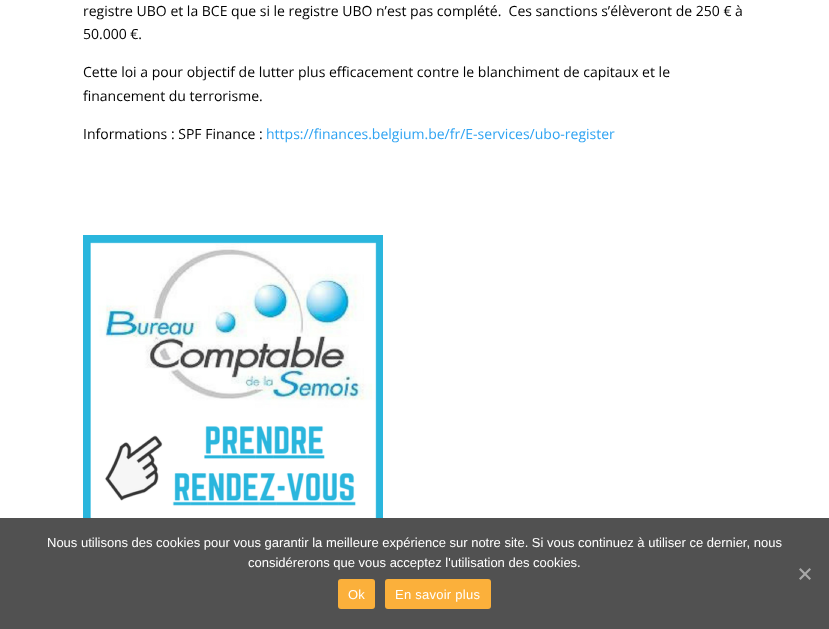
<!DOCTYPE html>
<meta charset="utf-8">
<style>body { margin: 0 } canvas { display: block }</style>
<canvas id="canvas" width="829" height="629"></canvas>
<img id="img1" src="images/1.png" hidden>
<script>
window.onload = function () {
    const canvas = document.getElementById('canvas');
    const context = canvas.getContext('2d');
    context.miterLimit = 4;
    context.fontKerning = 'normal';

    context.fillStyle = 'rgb(255, 255, 255)';
    context.fillRect(0, 0, 829, 629);
    context.drawImage(document.getElementById('img1'), 83, 235, 300, 283);
    context.fillStyle = 'rgb(81, 81, 81)';
    context.fillRect(0, 518, 829, 111);
    context.fillStyle = 'rgb(168, 168, 168)';
    context.beginPath();
    context.moveTo(809.5, 568);
    context.lineTo(811, 569.5);
    context.lineTo(800.5, 580);
    context.lineTo(799, 578.5);
    context.closePath();
    context.fill();
    context.beginPath();
    context.moveTo(799, 569.5);
    context.lineTo(800.5, 568);
    context.lineTo(811, 578.5);
    context.lineTo(809.5, 580);
    context.closePath();
    context.fill();
    context.fillStyle = 'rgb(251, 176, 59)';
    context.beginPath();
    context.roundRect(338, 579, 37, 30, 3);
    context.fill();
    context.beginPath();
    context.roundRect(385, 579, 106, 30, 3);
    context.fill();
    context.font = '14px Open Sans';
    context.fillStyle = 'rgb(0, 0, 0)';
    context.fillText('registre UBO et la BCE que si le registre UBO n’est pas complété.  Ces sanctions s’élèveront de 250 € à', 83, 16);
    context.fillText('50.000 €.', 83, 39);
    context.fillText('Cette loi a pour objectif de lutter plus efficacement contre le blanchiment de capitaux et le', 83, 77);
    context.fillText('financement du terrorisme.', 83, 101);
    context.fillText('Informations : SPF Finance :', 83, 139);
    context.fillStyle = 'rgb(46, 163, 242)';
    context.fillText('https://finances.belgium.be/fr/E-services/ubo-register', 266, 139);
    context.font = '13px Liberation Sans';
    context.fillStyle = 'rgb(255, 255, 255)';
    context.fillText('Nous utilisons des cookies pour vous garantir la meilleure expérience sur notre site. Si vous continuez à utiliser ce dernier, nous', 47, 547);
    context.fillText('considérerons que vous acceptez l\'utilisation des cookies.', 248, 567);
    context.letterSpacing = '0.25px';
    context.fillText('Ok', 348, 599);
    context.fillText('En savoir plus', 395, 599);
};
</script>
